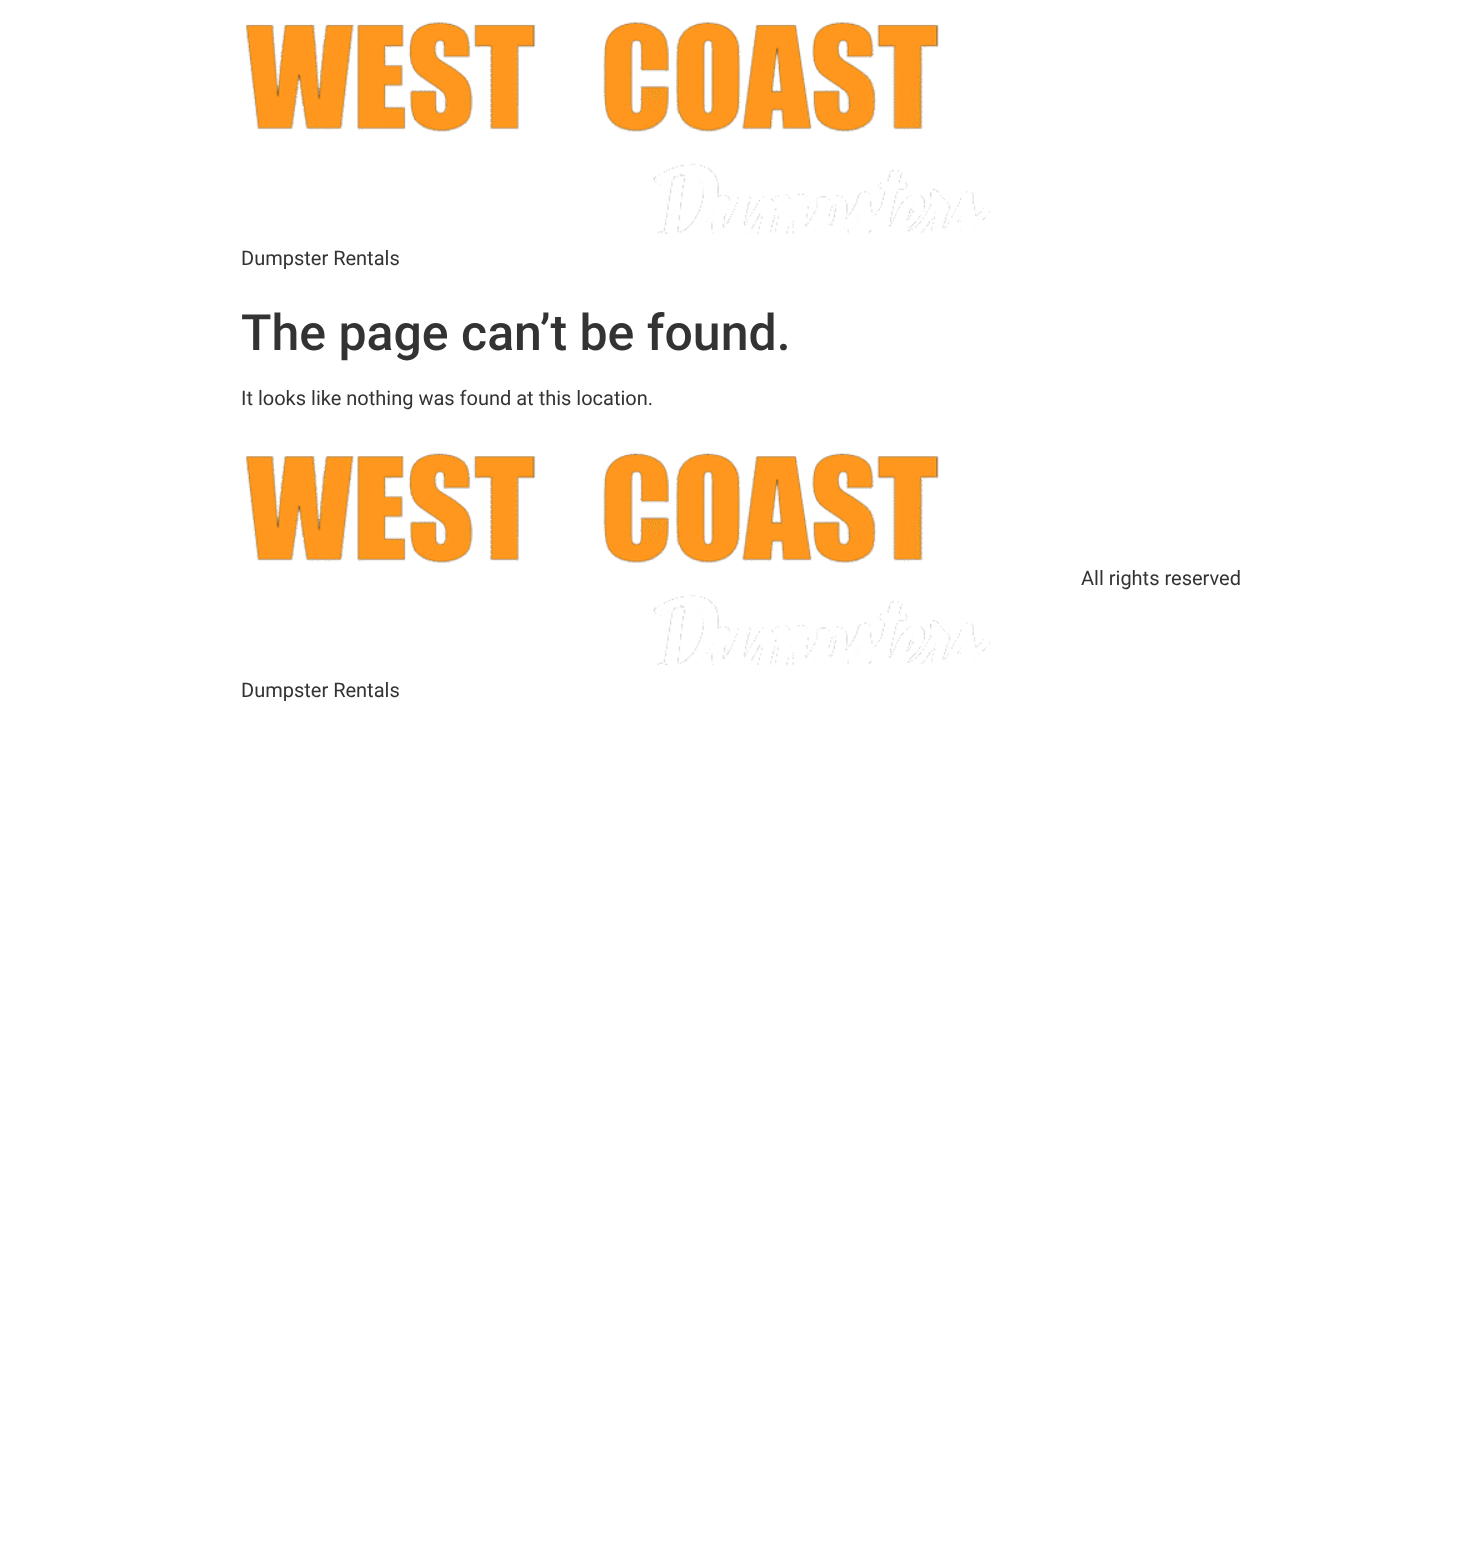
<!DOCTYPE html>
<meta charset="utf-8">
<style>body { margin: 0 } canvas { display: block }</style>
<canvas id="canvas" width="1481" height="1564"></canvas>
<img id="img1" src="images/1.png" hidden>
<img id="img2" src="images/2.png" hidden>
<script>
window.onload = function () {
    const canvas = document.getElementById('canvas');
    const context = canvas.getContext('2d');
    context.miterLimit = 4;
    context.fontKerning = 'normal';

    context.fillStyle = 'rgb(255, 255, 255)';
    context.fillRect(0, 0, 1481, 1564);
    context.drawImage(document.getElementById('img1'), 246, 22, 745, 212);
    context.drawImage(document.getElementById('img2'), 246, 453, 745, 212);
    context.font = '20px Roboto';
    context.fillStyle = 'rgb(51, 51, 51)';
    context.fillText('Dumpster Rentals', 241, 265);
    context.font = '500 50px Roboto';
    context.fillText('The page can’t be found.', 241, 350);
    context.font = '20px Roboto';
    context.fillText('It looks like nothing was found at this location.', 241, 405);
    context.fillText('All rights reserved', 1081, 585);
    context.fillText('Dumpster Rentals', 241, 697);
};
</script>
